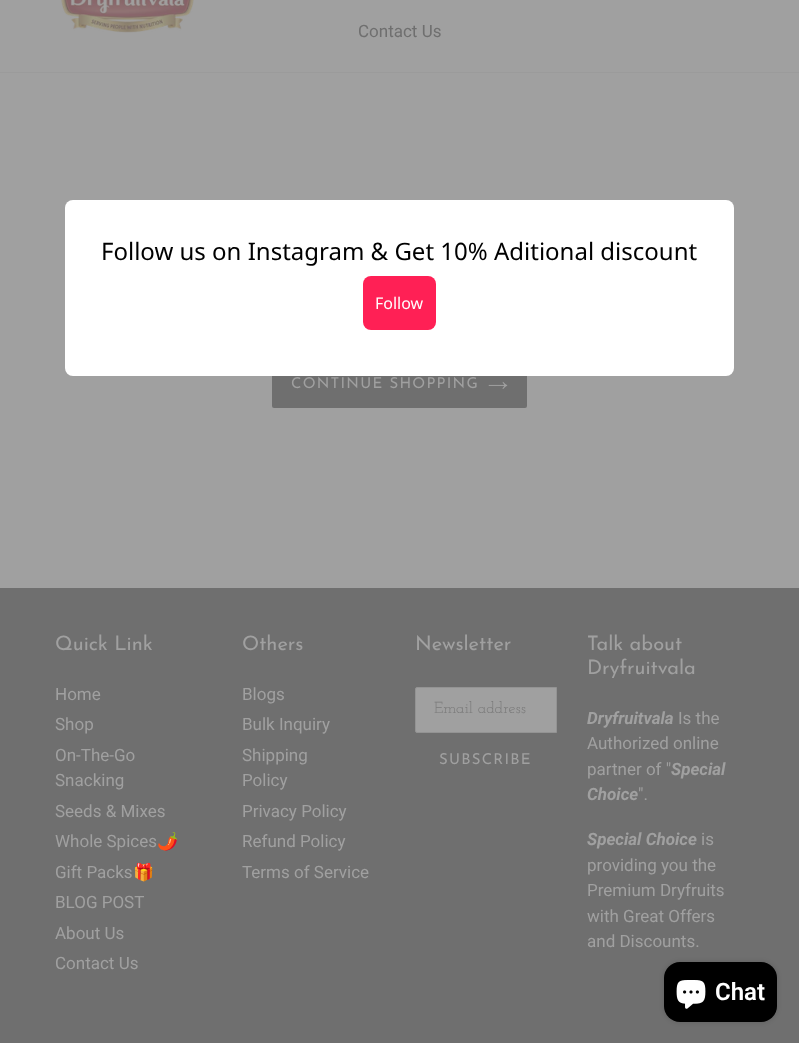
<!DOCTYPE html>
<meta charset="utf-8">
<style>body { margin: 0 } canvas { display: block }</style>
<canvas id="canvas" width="799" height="1043"></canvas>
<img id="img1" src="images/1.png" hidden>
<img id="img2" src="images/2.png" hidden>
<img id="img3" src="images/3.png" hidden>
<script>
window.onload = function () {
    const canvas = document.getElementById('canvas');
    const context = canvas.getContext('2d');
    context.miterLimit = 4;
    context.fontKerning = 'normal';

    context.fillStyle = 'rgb(160, 160, 160)';
    context.fillRect(0, 0, 799, 1043);
    context.fillStyle = 'rgb(155, 155, 155)';
    context.fillRect(0, 72, 799, 1);
    context.drawImage(document.getElementById('img1'), 61, 0, 133, 33);
    context.fillStyle = 'rgb(111, 111, 111)';
    context.beginPath();
    context.roundRect(272, 363, 255, 45, 2);
    context.fill();
    context.fillStyle = 'rgb(255, 255, 255)';
    context.beginPath();
    context.roundRect(65, 200, 669, 176, 8);
    context.fill();
    context.fillStyle = 'rgb(255, 32, 85)';
    context.beginPath();
    context.roundRect(363, 276, 73, 54, 8);
    context.fill();
    context.drawImage(document.getElementById('img2'), 488, 381, 20, 8);
    context.fillStyle = 'rgb(111, 111, 111)';
    context.fillRect(0, 588, 799, 455);
    context.fillStyle = 'rgb(160, 160, 160)';
    context.beginPath();
    context.roundRect(415.5, 687.5, 141, 45, [1.5, 0, 0, 1.5]);
    context.fill();
    context.strokeStyle = 'rgb(147, 147, 147)';
    context.stroke();
    context.fillStyle = 'rgba(0, 0, 0, 0.15)';
    context.filter = 'blur(2.5px)';
    context.beginPath();
    context.roundRect(664, 962, 113, 60, 16);
    context.fill();
    context.filter = 'none';
    context.fillStyle = 'rgb(0, 0, 0)';
    context.beginPath();
    context.roundRect(664, 962, 113, 60, 16);
    context.fill();
    context.drawImage(document.getElementById('img3'), 676, 980, 30, 29);
    context.font = '17px Roboto';
    context.fillStyle = 'rgb(111, 111, 111)';
    context.fillText('Contact Us', 358, 37);
    context.font = '24px Noto Sans';
    context.fillStyle = 'rgb(0, 0, 0)';
    context.fillText('Follow us on Instagram & Get 10% Aditional discount', 101, 260);
    context.font = '16px Noto Sans';
    context.fillStyle = 'rgb(255, 255, 255)';
    context.fillText('Follow', 375, 309);
    context.letterSpacing = '1.25px';
    context.font = '15px Josefin Sans';
    context.fillStyle = 'rgb(160, 160, 160)';
    context.fillText('CONTINUE SHOPPING', 291, 388);
    context.letterSpacing = '0px';
    context.font = '20px Josefin Sans';
    context.fillText('Quick Link', 55, 650);
    context.font = '17px Roboto';
    context.fillText('Home', 55, 700);
    context.fillText('Shop', 55, 730);
    context.fillText('On-The-Go', 55, 761);
    context.fillText('Snacking', 55, 786);
    context.fillText('Seeds & Mixes', 55, 817);
    context.fillText('Whole Spices', 55, 847);
    context.font = '17px Noto Color Emoji';
    context.fillText('🌶️', 157, 847);
    context.font = '17px Roboto';
    context.fillText('Gift Packs', 55, 878);
    context.font = '17px Noto Color Emoji';
    context.fillText('🎁', 133, 878);
    context.font = '17px Roboto';
    context.fillText('BLOG POST', 55, 908);
    context.fillText('About Us', 55, 939);
    context.fillText('Contact Us', 55, 969);
    context.font = '20px Josefin Sans';
    context.fillText('Others', 242, 650);
    context.font = '17px Roboto';
    context.fillText('Blogs', 242, 700);
    context.fillText('Bulk Inquiry', 242, 730);
    context.fillText('Shipping', 242, 761);
    context.fillText('Policy', 242, 786);
    context.fillText('Privacy Policy', 242, 817);
    context.fillText('Refund Policy', 242, 847);
    context.fillText('Terms of Service', 242, 878);
    context.font = '20px Josefin Sans';
    context.fillText('Newsletter', 415, 650);
    context.font = '16px Josefin Slab';
    context.fillStyle = 'rgb(122, 122, 122)';
    context.fillText('Email address', 434, 713);
    context.letterSpacing = '1.25px';
    context.font = '15px Josefin Sans';
    context.fillStyle = 'rgb(160, 160, 160)';
    context.fillText('SUBSCRIBE', 439, 764);
    context.letterSpacing = '0px';
    context.font = '20px Josefin Sans';
    context.fillText('Talk about', 587, 650);
    context.fillText('Dryfruitvala', 587, 674);
    context.font = 'italic bold 17px Roboto';
    context.fillText('Dryfruitvala', 587, 724);
    context.font = '17px Roboto';
    context.fillText('Is the', 678, 724);
    context.fillText('Authorized online', 587, 749);
    context.fillText('partner of "', 587, 775);
    context.font = 'italic bold 17px Roboto';
    context.fillText('Special', 671, 775);
    context.fillText('Choice', 587, 800);
    context.font = '17px Roboto';
    context.fillText('".', 638, 800);
    context.font = 'italic bold 17px Roboto';
    context.fillText('Special Choice', 587, 845);
    context.font = '17px Roboto';
    context.fillText('is', 701, 845);
    context.fillText('providing you the', 587, 871);
    context.fillText('Premium Dryfruits', 587, 896);
    context.fillText('with Great Offers', 587, 922);
    context.fillText('and Discounts.', 587, 947);
    context.font = '600 24px Roboto';
    context.fillStyle = 'rgb(255, 255, 255)';
    context.fillText('Chat', 715, 1000);
};
</script>
